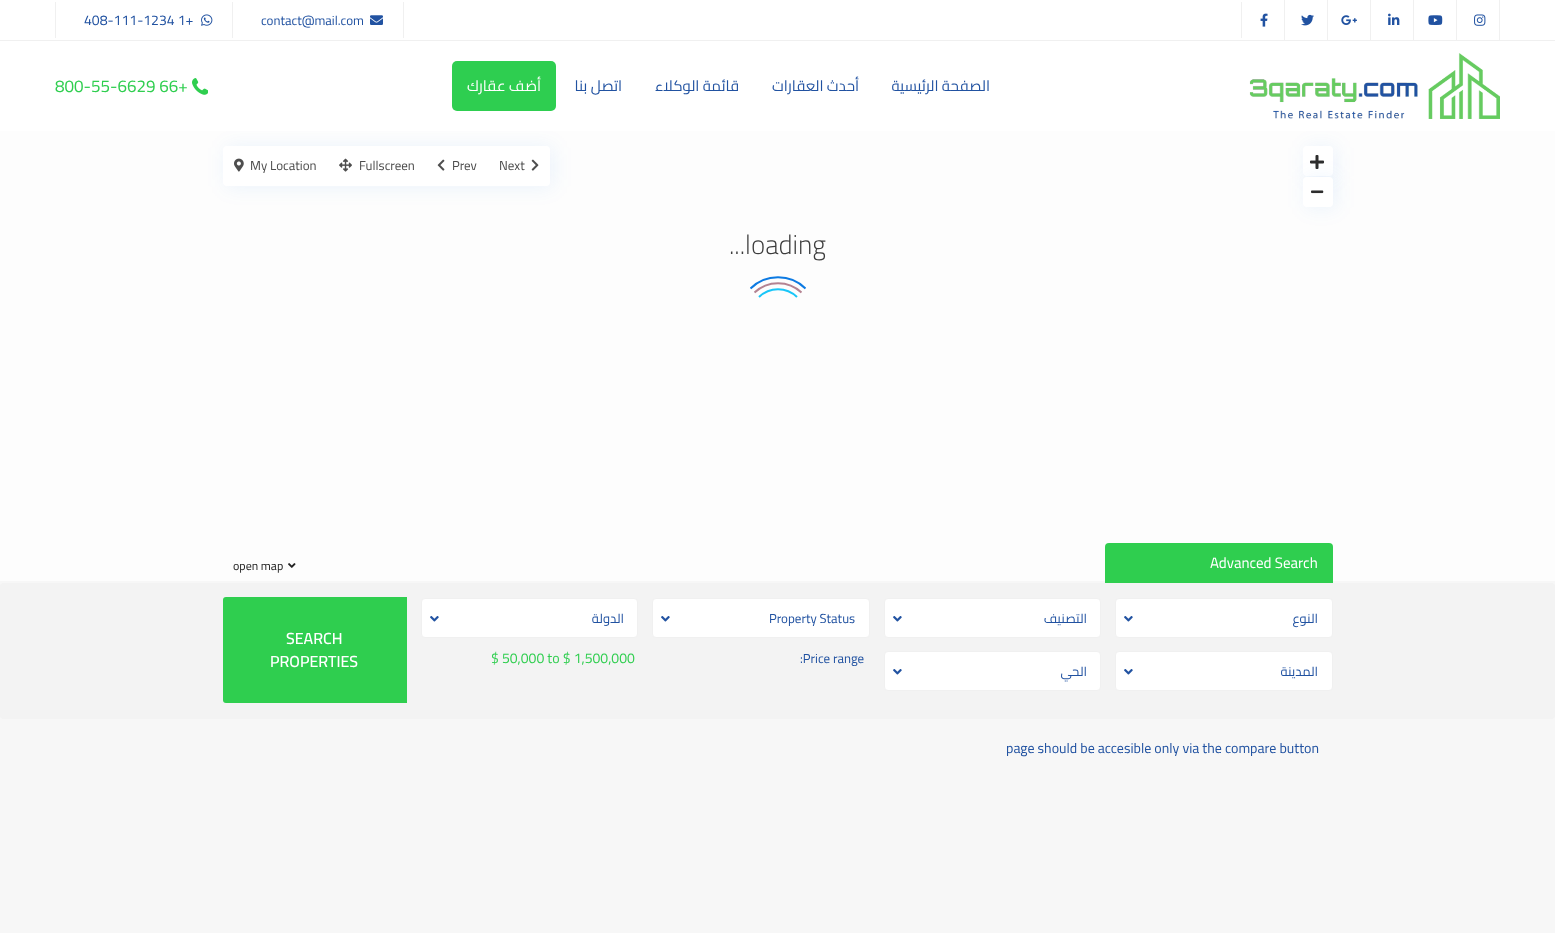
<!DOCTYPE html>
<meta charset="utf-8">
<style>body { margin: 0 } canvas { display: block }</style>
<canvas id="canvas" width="1555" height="933"></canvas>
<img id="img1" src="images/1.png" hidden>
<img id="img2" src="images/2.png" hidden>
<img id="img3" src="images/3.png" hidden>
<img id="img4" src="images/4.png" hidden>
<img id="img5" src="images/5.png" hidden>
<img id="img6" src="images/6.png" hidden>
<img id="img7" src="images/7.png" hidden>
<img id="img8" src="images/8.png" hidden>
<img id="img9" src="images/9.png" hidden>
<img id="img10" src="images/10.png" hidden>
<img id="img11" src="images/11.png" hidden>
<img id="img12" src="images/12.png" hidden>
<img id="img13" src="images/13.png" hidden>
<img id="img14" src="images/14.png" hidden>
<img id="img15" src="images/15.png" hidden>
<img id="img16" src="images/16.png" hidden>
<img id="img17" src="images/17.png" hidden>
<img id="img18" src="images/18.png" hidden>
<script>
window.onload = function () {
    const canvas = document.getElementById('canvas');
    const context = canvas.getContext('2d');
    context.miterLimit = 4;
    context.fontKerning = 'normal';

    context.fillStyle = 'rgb(247, 247, 247)';
    context.fillRect(0, 0, 1555, 933);
    context.fillStyle = 'rgb(253, 253, 253)';
    context.fillRect(0, 131, 1555, 450);
    context.fillStyle = 'rgba(13, 117, 226, 0.08)';
    context.filter = 'blur(10px)';
    context.beginPath();
    context.roundRect(1306, 147, 30, 30, 4);
    context.fill();
    context.filter = 'none';
    context.filter = 'blur(10px)';
    context.beginPath();
    context.roundRect(226, 147, 327, 40, 4);
    context.fill();
    context.filter = 'none';
    context.fillStyle = 'rgb(255, 255, 255)';
    context.fillRect(0, 0, 1555, 131);
    context.fillStyle = 'rgb(240, 240, 240)';
    context.fillRect(0, 40, 1555, 1);
    context.fillRect(55, 2, 1, 36);
    context.drawImage(document.getElementById('img1'), 201, 14, 12, 12);
    context.fillRect(403, 2, 1, 36);
    context.fillRect(232, 2, 1, 36);
    context.drawImage(document.getElementById('img2'), 370, 15, 13, 10);
    context.fillRect(1241, 2, 1, 36);
    context.fillRect(1284, 0, 1, 40);
    context.drawImage(document.getElementById('img3'), 1260, 13, 8, 14);
    context.fillRect(1327, 0, 1, 40);
    context.drawImage(document.getElementById('img4'), 1301, 14, 13, 12);
    context.fillRect(1370, 0, 1, 40);
    context.drawImage(document.getElementById('img5'), 1341, 15, 16, 10);
    context.fillRect(1413, 0, 1, 40);
    context.drawImage(document.getElementById('img6'), 1388, 13, 12, 12);
    context.fillRect(1456, 0, 1, 40);
    context.drawImage(document.getElementById('img7'), 1428, 15, 15, 10);
    context.fillRect(1499, 0, 1, 40);
    context.drawImage(document.getElementById('img8'), 1474, 14, 12, 12);
    context.drawImage(document.getElementById('img9'), 192, 78, 16, 17);
    context.fillStyle = 'rgb(46, 206, 80)';
    context.beginPath();
    context.roundRect(452, 61, 104, 50, 5);
    context.fill();
    context.drawImage(document.getElementById('img10'), 1249, 53, 251, 66);
    context.fillStyle = 'rgb(255, 255, 255)';
    context.beginPath();
    context.roundRect(1303, 146, 30, 30, 4);
    context.fill();
    context.drawImage(document.getElementById('img11'), 1310, 155, 14, 14);
    context.beginPath();
    context.roundRect(223, 146, 327, 40, 4);
    context.fill();
    context.drawImage(document.getElementById('img12'), 234, 158, 10, 14);
    context.drawImage(document.getElementById('img13'), 339, 158, 13, 14);
    context.drawImage(document.getElementById('img14'), 437, 159, 8, 12);
    context.drawImage(document.getElementById('img15'), 531, 159, 8, 12);
    context.save();
    context.beginPath();
    context.moveTo(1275, 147);
    context.lineTo(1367, 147);
    context.lineTo(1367, 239);
    context.lineTo(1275, 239);
    context.closePath();
    context.moveTo(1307, 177);
    context.lineTo(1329, 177);
    context.bezierCurveTo(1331, 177, 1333, 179, 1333, 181);
    context.lineTo(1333, 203);
    context.bezierCurveTo(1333, 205, 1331, 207, 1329, 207);
    context.lineTo(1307, 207);
    context.bezierCurveTo(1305, 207, 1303, 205, 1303, 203);
    context.lineTo(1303, 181);
    context.bezierCurveTo(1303, 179, 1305, 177, 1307, 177);
    context.closePath();
    context.clip('evenodd');
    context.fillStyle = 'rgba(0, 110, 225, 0.08)';
    context.filter = 'blur(10px)';
    context.beginPath();
    context.roundRect(1306, 178, 30, 30, 4);
    context.fill();
    context.filter = 'none';
    context.restore();
    context.fillStyle = 'rgba(255, 255, 255, 0.95)';
    context.beginPath();
    context.roundRect(1303, 177, 30, 30, 4);
    context.fill();
    context.drawImage(document.getElementById('img16'), 1311, 190, 13, 4);
    context.drawImage(document.getElementById('img17'), 288, 563, 8, 5);
    context.beginPath();
    context.moveTo(750.5, 288.5);
    context.bezierCurveTo(765.5, 273.5, 790.5, 273.5, 805.5, 288.5);
    context.strokeStyle = 'rgb(13, 122, 226)';
    context.lineWidth = 2;
    context.stroke();
    context.beginPath();
    context.moveTo(754.5, 292.5);
    context.bezierCurveTo(767.5, 280, 788.5, 280, 801.5, 292.5);
    context.strokeStyle = 'rgb(180, 131, 146)';
    context.stroke();
    context.beginPath();
    context.moveTo(759, 297);
    context.bezierCurveTo(769.5, 286.5, 786.5, 286.5, 797, 297);
    context.strokeStyle = 'rgb(25, 198, 248)';
    context.stroke();
    context.fillStyle = 'rgb(47, 206, 79)';
    context.beginPath();
    context.roundRect(1105, 543, 228, 40, [4, 4, 0, 0]);
    context.fill();
    context.fillStyle = 'rgb(243, 243, 243)';
    context.beginPath();
    context.roundRect(0, 583, 1555, 136, 4);
    context.fill();
    context.fillStyle = 'rgb(47, 206, 79)';
    context.beginPath();
    context.roundRect(223, 597, 184, 106, [3, 0, 0, 3]);
    context.fill();
    context.fillStyle = 'rgb(255, 255, 255)';
    context.beginPath();
    context.roundRect(421.5, 598.5, 216, 39, 3.5);
    context.fill();
    context.strokeStyle = 'rgb(240, 240, 240)';
    context.lineWidth = 1;
    context.stroke();
    context.drawImage(document.getElementById('img18'), 430, 616, 9, 6);
    context.beginPath();
    context.roundRect(652.5, 598.5, 217, 39, 3.5);
    context.fill();
    context.stroke();
    context.drawImage(document.getElementById('img18'), 661, 616, 9, 6);
    context.beginPath();
    context.roundRect(884.5, 598.5, 216, 39, 3.5);
    context.fill();
    context.stroke();
    context.drawImage(document.getElementById('img18'), 893, 616, 9, 6);
    context.beginPath();
    context.roundRect(1115.5, 598.5, 217, 39, 3.5);
    context.fill();
    context.stroke();
    context.drawImage(document.getElementById('img18'), 1124, 616, 9, 6);
    context.beginPath();
    context.roundRect(884.5, 651.5, 216, 39, 3.5);
    context.fill();
    context.stroke();
    context.drawImage(document.getElementById('img18'), 893, 669, 9, 6);
    context.beginPath();
    context.roundRect(1115.5, 651.5, 217, 39, 3.5);
    context.fill();
    context.stroke();
    context.drawImage(document.getElementById('img18'), 1124, 669, 9, 6);
    context.font = '14px Cairo';
    context.fillStyle = 'rgb(33, 82, 161)';
    context.fillText('408-111-1234 1+', 84, 25);
    context.font = '13px Cairo';
    context.fillText('contact@mail.com', 261, 25);
    context.font = '17px Cairo';
    context.fillStyle = 'rgb(47, 206, 79)';
    context.fillText('800-55-6629 66+', 55, 92);
    context.direction = 'rtl';
    context.font = '15px Cairo';
    context.fillStyle = 'rgb(255, 255, 255)';
    context.fillText('أضف عقارك', 541, 91);
    context.fillStyle = 'rgb(33, 82, 161)';
    context.fillText('اتصل بنا', 622, 91);
    context.fillText('قائمة الوكلاء', 739, 91);
    context.fillText('أحدث العقارات', 859, 91);
    context.fillText('الصفحة الرئيسية', 990, 91);
    context.direction = 'ltr';
    context.font = '13px Cairo';
    context.fillStyle = 'rgb(77, 77, 77)';
    context.fillText('My Location', 250, 170);
    context.fillText('Fullscreen', 359, 170);
    context.fillText('Prev', 452, 170);
    context.fillText('Next', 499, 170);
    context.font = '12px Cairo';
    context.fillStyle = 'rgb(34, 34, 34)';
    context.fillText('open map', 233, 570);
    context.font = '300 27px Cairo';
    context.fillStyle = 'rgb(61, 61, 61)';
    context.fillText('...loading', 729, 254);
    context.font = '15px Cairo';
    context.fillStyle = 'rgb(255, 255, 255)';
    context.fillText('Advanced Search', 1210, 568);
    context.font = '600 16px Cairo';
    context.fillText('SEARCH', 286, 644);
    context.fillText('PROPERTIES', 270, 667);
    context.direction = 'rtl';
    context.font = '13px Cairo';
    context.fillStyle = 'rgb(33, 82, 161)';
    context.fillText('الدولة', 624, 623);
    context.direction = 'ltr';
    context.fillText('Property Status', 769, 623);
    context.direction = 'rtl';
    context.fillText('التصنيف', 1087, 623);
    context.fillText('النوع', 1318, 623);
    context.direction = 'ltr';
    context.font = '14px Cairo';
    context.fillStyle = 'rgb(47, 206, 79)';
    context.fillText('$ 50,000 to $ 1,500,000', 491, 663);
    context.font = '13px Cairo';
    context.fillStyle = 'rgb(33, 82, 161)';
    context.fillText(':Price range', 800, 663);
    context.direction = 'rtl';
    context.fillText('الحي', 1087, 676);
    context.fillText('المدينة', 1318, 676);
    context.direction = 'ltr';
    context.font = '14px Cairo';
    context.fillText('page should be accesible only via the compare button', 1006, 753);
};
</script>
